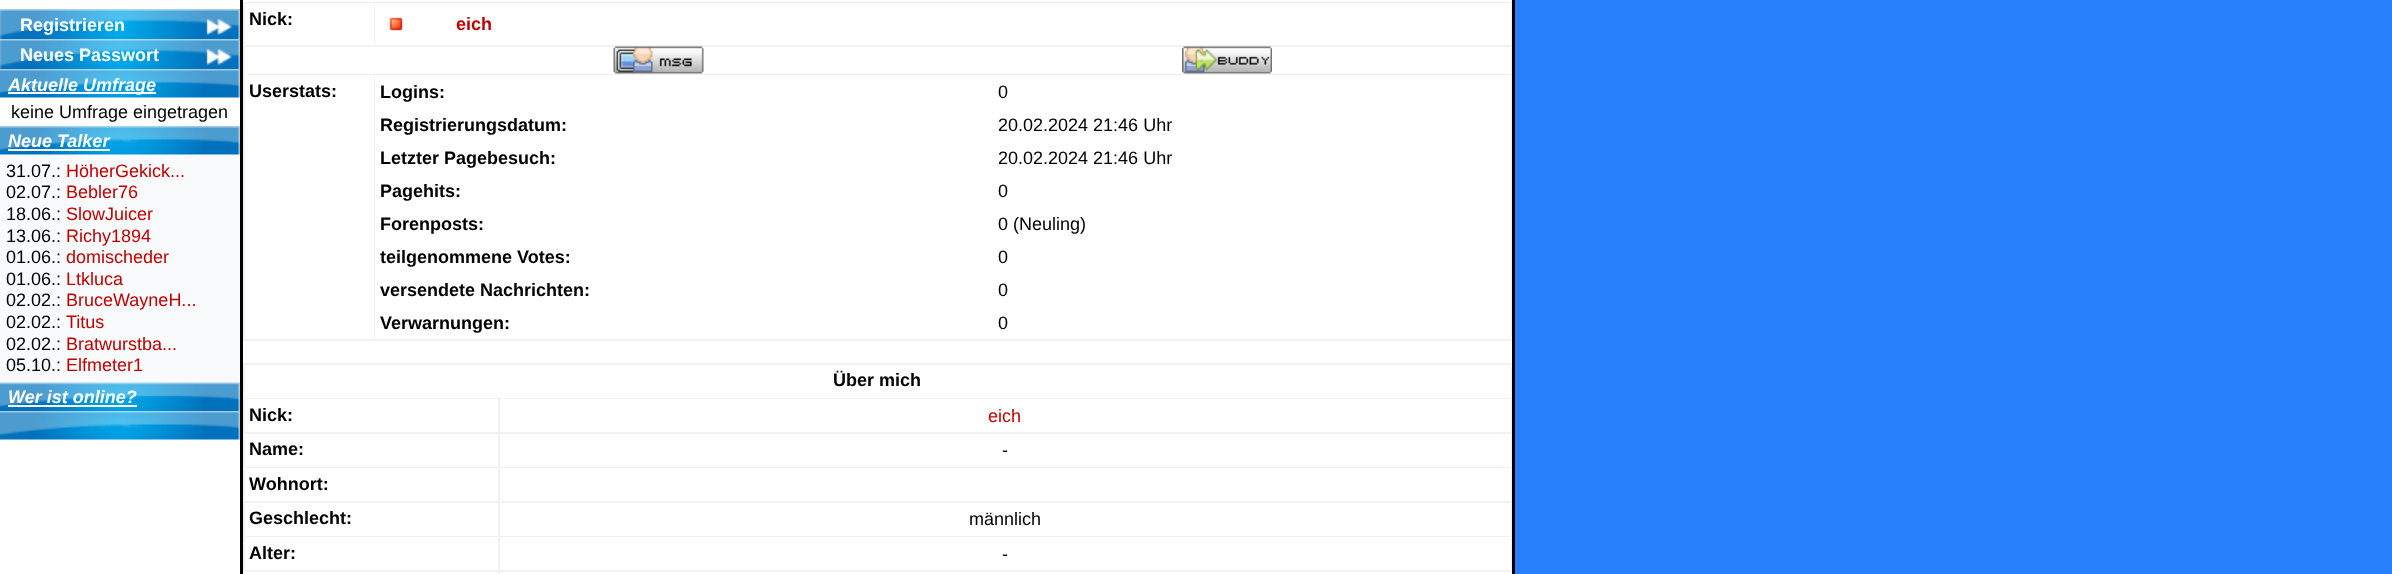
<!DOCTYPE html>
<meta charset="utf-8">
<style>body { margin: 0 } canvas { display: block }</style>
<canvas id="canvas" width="2392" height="574"></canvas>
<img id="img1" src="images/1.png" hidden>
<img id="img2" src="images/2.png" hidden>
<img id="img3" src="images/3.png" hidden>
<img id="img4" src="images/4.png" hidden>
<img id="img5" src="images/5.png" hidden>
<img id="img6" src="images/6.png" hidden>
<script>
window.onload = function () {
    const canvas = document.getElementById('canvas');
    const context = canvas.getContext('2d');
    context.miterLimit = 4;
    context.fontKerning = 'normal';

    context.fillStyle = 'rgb(40, 128, 251)';
    context.fillRect(0, 0, 2392, 574);
    context.fillStyle = 'rgb(255, 255, 255)';
    context.fillRect(0, 0, 1512, 574);
    context.fillStyle = 'rgb(0, 0, 0)';
    context.fillRect(240, 0, 3, 574);
    context.drawImage(document.getElementById('img1'), 0, 9, 240, 30);
    context.drawImage(document.getElementById('img1'), 0, 39, 240, 30);
    context.drawImage(document.getElementById('img2'), 0, 69, 240, 29);
    context.fillStyle = 'rgb(255, 255, 255)';
    context.fillRect(8, 92, 148, 2);
    context.drawImage(document.getElementById('img2'), 0, 126, 240, 29);
    context.fillRect(8, 149, 102, 2);
    context.fillStyle = 'rgb(249, 250, 251)';
    context.fillRect(0, 155, 240, 228);
    context.drawImage(document.getElementById('img3'), 0, 382, 240, 29);
    context.fillStyle = 'rgb(255, 255, 255)';
    context.fillRect(8, 405, 129, 2);
    context.drawImage(document.getElementById('img2'), 0, 411, 240, 29);
    context.fillStyle = 'rgb(0, 0, 0)';
    context.fillRect(1512, 0, 3, 574);
    context.fillStyle = 'rgb(241, 241, 241)';
    context.fillRect(243, 2, 1269, 339);
    context.fillStyle = 'rgb(255, 255, 255)';
    context.fillRect(245, 3, 129, 42);
    context.fillRect(375, 3, 1136, 42);
    context.drawImage(document.getElementById('img4'), 389, 17, 14, 14);
    context.fillRect(245, 47, 1266, 27);
    context.drawImage(document.getElementById('img5'), 613, 46, 91, 28);
    context.drawImage(document.getElementById('img6'), 1182, 46, 90, 28);
    context.fillRect(245, 75, 129, 264);
    context.fillRect(375, 75, 1136, 33);
    context.fillRect(375, 108, 1136, 33);
    context.fillRect(375, 141, 1136, 33);
    context.fillRect(375, 174, 1136, 33);
    context.fillRect(375, 207, 1136, 33);
    context.fillRect(375, 240, 1136, 33);
    context.fillRect(375, 273, 1136, 33);
    context.fillRect(375, 306, 1136, 33);
    context.fillStyle = 'rgb(241, 241, 241)';
    context.fillRect(243, 363, 1269, 211);
    context.fillStyle = 'rgb(255, 255, 255)';
    context.fillRect(245, 365, 1266, 33);
    context.fillRect(245, 399, 253, 33);
    context.fillRect(500, 399, 1011, 33);
    context.fillRect(245, 434, 253, 33);
    context.fillRect(500, 434, 1011, 33);
    context.fillRect(245, 468, 253, 33);
    context.fillRect(500, 468, 1011, 33);
    context.fillRect(245, 503, 253, 33);
    context.fillRect(500, 503, 1011, 33);
    context.fillRect(245, 537, 253, 33);
    context.fillRect(500, 537, 1011, 33);
    context.fillRect(245, 572, 253, 2);
    context.fillRect(500, 572, 1011, 2);
    context.font = 'bold 18px Liberation Sans';
    context.fillText('Registrieren', 20, 31);
    context.fillText('Neues Passwort', 20, 61);
    context.font = 'italic bold 18px Liberation Sans';
    context.fillText('Aktuelle Umfrage', 8, 91);
    context.font = '18px Liberation Sans';
    context.fillStyle = 'rgb(0, 0, 0)';
    context.fillText('keine Umfrage eingetragen', 11, 118);
    context.font = 'italic bold 18px Liberation Sans';
    context.fillStyle = 'rgb(255, 255, 255)';
    context.fillText('Neue Talker', 8, 147);
    context.font = '18px Liberation Sans';
    context.fillStyle = 'rgb(0, 0, 0)';
    context.fillText('31.07.:', 6, 177);
    context.fillStyle = 'rgb(192, 0, 0)';
    context.fillText('HöherGekick...', 66, 177);
    context.fillStyle = 'rgb(0, 0, 0)';
    context.fillText('02.07.:', 6, 198);
    context.fillStyle = 'rgb(192, 0, 0)';
    context.fillText('Bebler76', 66, 198);
    context.fillStyle = 'rgb(0, 0, 0)';
    context.fillText('18.06.:', 6, 220);
    context.fillStyle = 'rgb(192, 0, 0)';
    context.fillText('SlowJuicer', 66, 220);
    context.fillStyle = 'rgb(0, 0, 0)';
    context.fillText('13.06.:', 6, 242);
    context.fillStyle = 'rgb(192, 0, 0)';
    context.fillText('Richy1894', 66, 242);
    context.fillStyle = 'rgb(0, 0, 0)';
    context.fillText('01.06.:', 6, 263);
    context.fillStyle = 'rgb(192, 0, 0)';
    context.fillText('domischeder', 66, 263);
    context.fillStyle = 'rgb(0, 0, 0)';
    context.fillText('01.06.:', 6, 285);
    context.fillStyle = 'rgb(192, 0, 0)';
    context.fillText('Ltkluca', 66, 285);
    context.fillStyle = 'rgb(0, 0, 0)';
    context.fillText('02.02.:', 6, 306);
    context.fillStyle = 'rgb(192, 0, 0)';
    context.fillText('BruceWayneH...', 66, 306);
    context.fillStyle = 'rgb(0, 0, 0)';
    context.fillText('02.02.:', 6, 328);
    context.fillStyle = 'rgb(192, 0, 0)';
    context.fillText('Titus', 66, 328);
    context.fillStyle = 'rgb(0, 0, 0)';
    context.fillText('02.02.:', 6, 350);
    context.fillStyle = 'rgb(192, 0, 0)';
    context.fillText('Bratwurstba...', 66, 350);
    context.fillStyle = 'rgb(0, 0, 0)';
    context.fillText('05.10.:', 6, 371);
    context.fillStyle = 'rgb(192, 0, 0)';
    context.fillText('Elfmeter1', 66, 371);
    context.font = 'italic bold 18px Liberation Sans';
    context.fillStyle = 'rgb(255, 255, 255)';
    context.fillText('Wer ist online?', 8, 403);
    context.font = 'bold 18px Liberation Sans';
    context.fillStyle = 'rgb(0, 0, 0)';
    context.fillText('Nick:', 249, 25);
    context.fillStyle = 'rgb(192, 0, 0)';
    context.fillText('eich', 456, 30);
    context.fillStyle = 'rgb(0, 0, 0)';
    context.fillText('Userstats:', 249, 97);
    context.fillText('Logins:', 380, 98);
    context.font = '18px Liberation Sans';
    context.fillText('0', 998, 98);
    context.font = 'bold 18px Liberation Sans';
    context.fillText('Registrierungsdatum:', 380, 131);
    context.font = '18px Liberation Sans';
    context.fillText('20.02.2024 21:46 Uhr', 998, 131);
    context.font = 'bold 18px Liberation Sans';
    context.fillText('Letzter Pagebesuch:', 380, 164);
    context.font = '18px Liberation Sans';
    context.fillText('20.02.2024 21:46 Uhr', 998, 164);
    context.font = 'bold 18px Liberation Sans';
    context.fillText('Pagehits:', 380, 197);
    context.font = '18px Liberation Sans';
    context.fillText('0', 998, 197);
    context.font = 'bold 18px Liberation Sans';
    context.fillText('Forenposts:', 380, 230);
    context.font = '18px Liberation Sans';
    context.fillText('0 (Neuling)', 998, 230);
    context.font = 'bold 18px Liberation Sans';
    context.fillText('teilgenommene Votes:', 380, 263);
    context.font = '18px Liberation Sans';
    context.fillText('0', 998, 263);
    context.font = 'bold 18px Liberation Sans';
    context.fillText('versendete Nachrichten:', 380, 296);
    context.font = '18px Liberation Sans';
    context.fillText('0', 998, 296);
    context.font = 'bold 18px Liberation Sans';
    context.fillText('Verwarnungen:', 380, 329);
    context.font = '18px Liberation Sans';
    context.fillText('0', 998, 329);
    context.font = 'bold 18px Liberation Sans';
    context.fillText('Über mich', 833, 386);
    context.fillText('Nick:', 249, 421);
    context.font = '18px Liberation Sans';
    context.fillStyle = 'rgb(192, 0, 0)';
    context.fillText('eich', 988, 422);
    context.font = 'bold 18px Liberation Sans';
    context.fillStyle = 'rgb(0, 0, 0)';
    context.fillText('Name:', 249, 455);
    context.font = '18px Liberation Sans';
    context.fillText('-', 1002, 456);
    context.font = 'bold 18px Liberation Sans';
    context.fillText('Wohnort:', 249, 490);
    context.fillText('Geschlecht:', 249, 524);
    context.font = '18px Liberation Sans';
    context.fillText('männlich', 969, 525);
    context.font = 'bold 18px Liberation Sans';
    context.fillText('Alter:', 249, 559);
    context.font = '18px Liberation Sans';
    context.fillText('-', 1002, 560);
};
</script>
